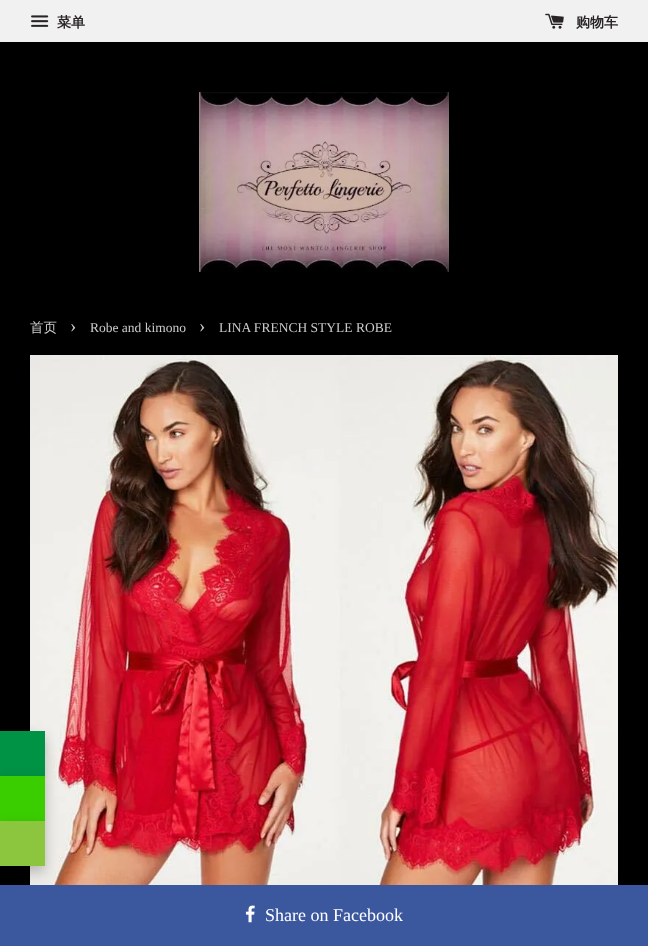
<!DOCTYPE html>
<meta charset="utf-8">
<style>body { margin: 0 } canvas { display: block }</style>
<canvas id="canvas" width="648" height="946"></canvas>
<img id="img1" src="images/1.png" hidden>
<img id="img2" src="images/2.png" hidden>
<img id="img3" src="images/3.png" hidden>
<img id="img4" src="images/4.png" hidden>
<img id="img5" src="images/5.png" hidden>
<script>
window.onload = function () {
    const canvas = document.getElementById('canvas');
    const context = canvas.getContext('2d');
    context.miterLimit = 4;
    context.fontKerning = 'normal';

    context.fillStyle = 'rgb(241, 241, 241)';
    context.fillRect(0, 0, 648, 946);
    context.drawImage(document.getElementById('img1'), 31, 15, 18, 12);
    context.drawImage(document.getElementById('img2'), 545, 13, 19, 16);
    context.fillStyle = 'rgb(0, 0, 0)';
    context.fillRect(0, 42, 648, 843);
    context.drawImage(document.getElementById('img3'), 199, 92, 250, 180);
    context.drawImage(document.getElementById('img4'), 30, 355, 588, 530);
    context.fillStyle = 'rgba(0, 0, 0, 0.23)';
    context.filter = 'blur(6.5px)';
    context.beginPath();
    context.rect(0, 737, 45, 45);
    context.fill();
    context.filter = 'none';
    context.fillStyle = 'rgb(0, 146, 69)';
    context.fillRect(0, 731, 45, 45);
    context.fillStyle = 'rgba(0, 0, 0, 0.23)';
    context.filter = 'blur(6.5px)';
    context.beginPath();
    context.rect(0, 782, 45, 45);
    context.fill();
    context.filter = 'none';
    context.fillStyle = 'rgb(58, 206, 0)';
    context.fillRect(0, 776, 45, 45);
    context.fillStyle = 'rgba(0, 0, 0, 0.23)';
    context.filter = 'blur(6.5px)';
    context.beginPath();
    context.rect(0, 827, 45, 45);
    context.fill();
    context.filter = 'none';
    context.fillStyle = 'rgb(140, 198, 63)';
    context.fillRect(0, 821, 45, 45);
    context.fillStyle = 'rgb(59, 87, 157)';
    context.fillRect(0, 885, 648, 61);
    context.drawImage(document.getElementById('img5'), 245, 905, 10, 18);
    context.font = 'bold 14px WenQuanYi Zen Hei';
    context.fillStyle = 'rgb(40, 35, 37)';
    context.fillText('菜单', 57, 27);
    context.fillText('购物车', 576, 27);
    context.font = '500 13.5px WenQuanYi Zen Hei';
    context.fillStyle = 'rgb(203, 203, 203)';
    context.fillText('首页', 30, 332);
    context.font = '19px Liberation Serif';
    context.fillText('›', 70, 332);
    context.font = '13.5px Liberation Serif';
    context.fillText('Robe and kimono', 90, 332);
    context.font = '19px Liberation Serif';
    context.fillText('›', 199, 332);
    context.font = '13.5px Liberation Serif';
    context.fillText('LINA FRENCH STYLE ROBE', 219, 332);
    context.font = '18px Liberation Serif';
    context.fillStyle = 'rgb(255, 255, 255)';
    context.fillText('Share on Facebook', 265, 921);
};
</script>
